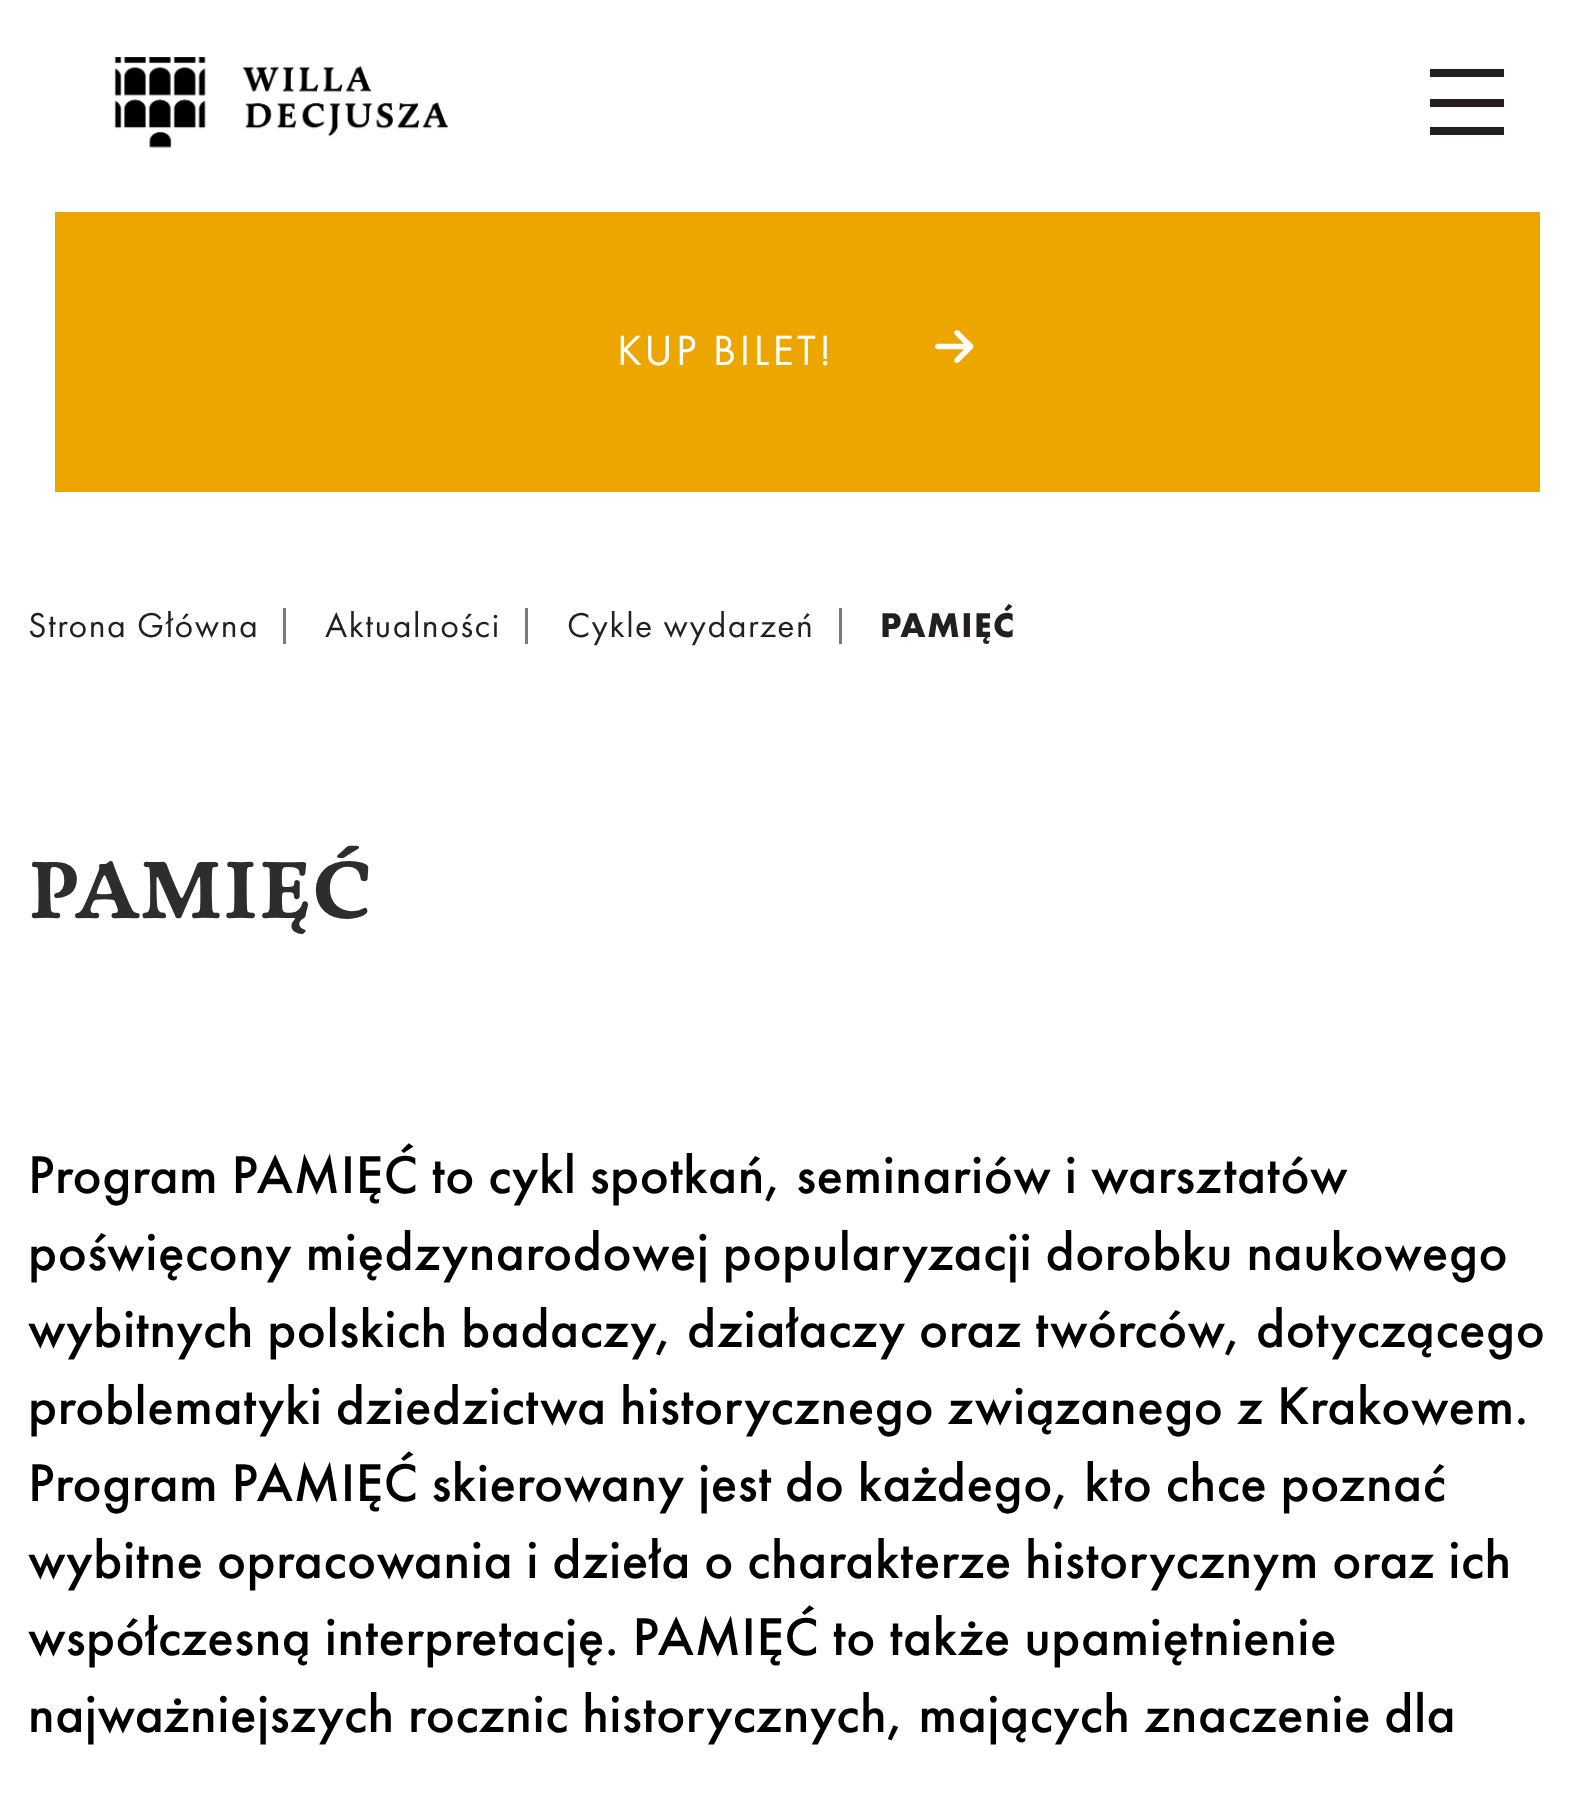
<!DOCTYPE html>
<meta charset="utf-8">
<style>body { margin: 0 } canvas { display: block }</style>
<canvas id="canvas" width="1595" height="1793"></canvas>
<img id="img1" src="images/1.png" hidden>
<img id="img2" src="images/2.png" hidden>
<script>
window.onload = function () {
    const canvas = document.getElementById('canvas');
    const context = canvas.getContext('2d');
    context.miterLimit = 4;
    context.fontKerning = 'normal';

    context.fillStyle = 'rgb(255, 255, 255)';
    context.fillRect(0, 0, 1595, 1793);
    context.drawImage(document.getElementById('img1'), 114, 57, 334, 92);
    context.fillStyle = 'rgb(35, 31, 32)';
    context.fillRect(1430, 69, 74, 8);
    context.fillRect(1430, 99, 74, 8);
    context.fillRect(1430, 127, 74, 8);
    context.fillStyle = 'rgb(237, 166, 0)';
    context.fillRect(55, 212, 1485, 280);
    context.drawImage(document.getElementById('img2'), 935, 330, 39, 33);
    context.fillStyle = 'rgb(123, 121, 121)';
    context.fillRect(283, 608, 3, 36);
    context.fillRect(525, 608, 3, 36);
    context.fillRect(839, 608, 3, 36);
    context.letterSpacing = '3.25px';
    context.font = '44px Futura PT';
    context.fillStyle = 'rgb(255, 255, 255)';
    context.fillText('KUP BILET!', 617, 365);
    context.letterSpacing = '1.5px';
    context.font = '35.75px Futura PT';
    context.fillStyle = 'rgb(35, 31, 32)';
    context.fillText('Strona Główna', 28, 637);
    context.fillText('Aktualności', 325, 637);
    context.fillText('Cykle wydarzeń', 567, 637);
    context.font = 'bold 35.75px Futura PT';
    context.fillText('PAMIĘĆ', 880, 637);
    context.letterSpacing = '0.75px';
    context.font = '82.5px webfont';
    context.fillStyle = 'rgb(45, 45, 45)';
    context.fillText('PAMIĘĆ', 28, 918);
    context.letterSpacing = '0.5px';
    context.font = '500 55px Futura PT';
    context.fillStyle = 'rgb(0, 0, 0)';
    context.fillText('Program PAMIĘĆ to cykl spotkań, seminariów i warsztatów', 28, 1193);
    context.fillText('poświęcony międzynarodowej popularyzacji dorobku naukowego', 28, 1270);
    context.fillText('wybitnych polskich badaczy, działaczy oraz twórców, dotyczącego', 28, 1347);
    context.fillText('problematyki dziedzictwa historycznego związanego z Krakowem.', 28, 1424);
    context.fillText('Program PAMIĘĆ skierowany jest do każdego, kto chce poznać', 28, 1501);
    context.fillText('wybitne opracowania i dzieła o charakterze historycznym oraz ich', 28, 1578);
    context.fillText('współczesną interpretację. PAMIĘĆ to także upamiętnienie', 28, 1655);
    context.fillText('najważniejszych rocznic historycznych, mających znaczenie dla', 28, 1732);
};
</script>
